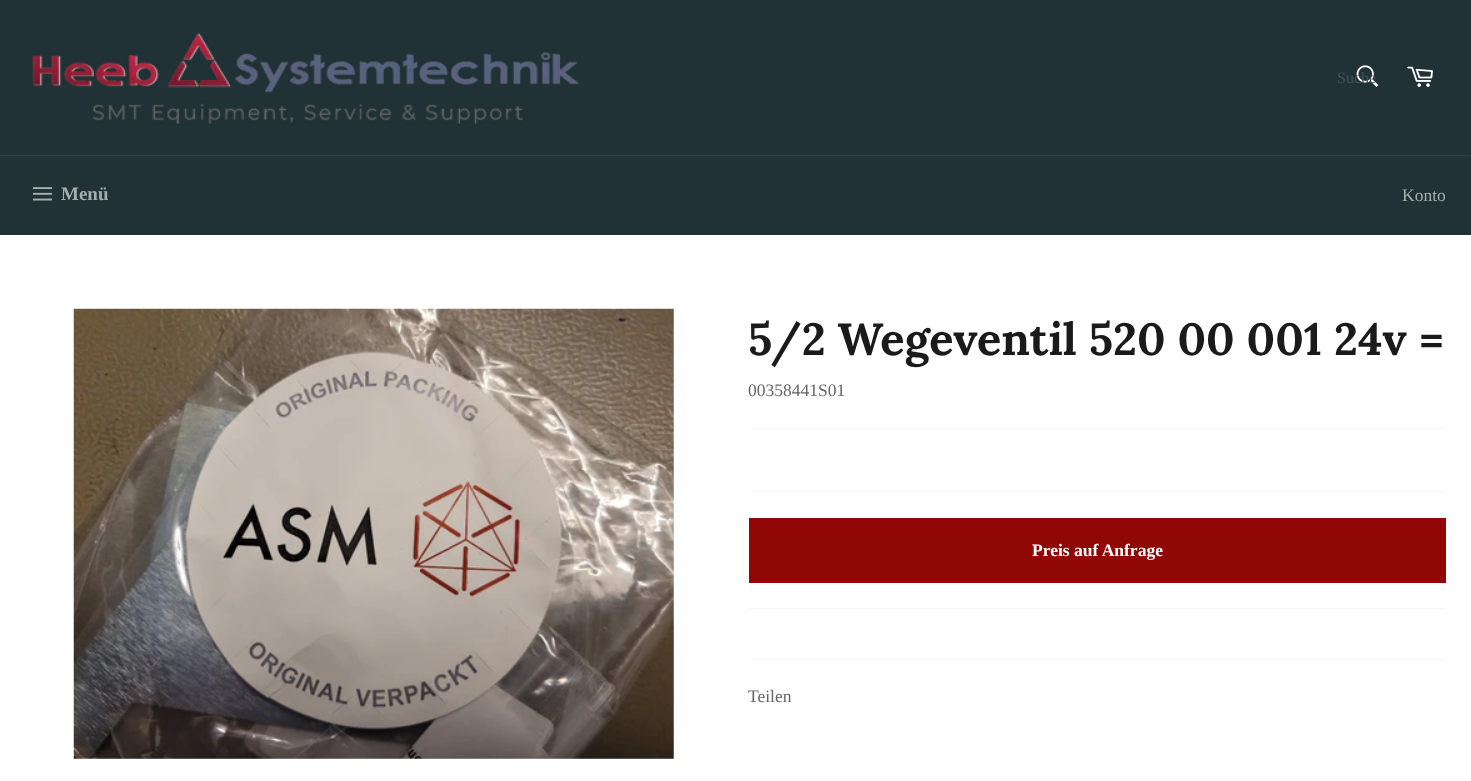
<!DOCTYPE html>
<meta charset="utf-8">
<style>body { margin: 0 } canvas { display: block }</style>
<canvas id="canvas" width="1471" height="781"></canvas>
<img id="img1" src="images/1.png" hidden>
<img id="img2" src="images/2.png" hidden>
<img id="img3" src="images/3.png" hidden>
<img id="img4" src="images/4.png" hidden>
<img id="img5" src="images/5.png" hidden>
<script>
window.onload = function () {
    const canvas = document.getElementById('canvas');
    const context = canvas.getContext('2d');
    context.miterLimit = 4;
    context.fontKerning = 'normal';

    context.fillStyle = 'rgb(33, 50, 54)';
    context.fillRect(0, 0, 1471, 781);
    context.drawImage(document.getElementById('img1'), 32, 32, 547, 92);
    context.drawImage(document.getElementById('img2'), 1356, 65, 23, 22);
    context.drawImage(document.getElementById('img3'), 1407, 66, 26, 21);
    context.fillStyle = 'rgb(43, 65, 70)';
    context.fillRect(0, 155, 1471, 1);
    context.drawImage(document.getElementById('img4'), 32, 187, 21, 14);
    context.fillStyle = 'rgb(255, 255, 255)';
    context.fillRect(0, 235, 1471, 546);
    context.drawImage(document.getElementById('img5'), 73, 308, 601, 451);
    context.fillStyle = 'rgb(247, 247, 247)';
    context.fillRect(749, 428, 697, 1);
    context.fillRect(749, 491, 697, 1);
    context.fillStyle = 'rgb(145, 7, 6)';
    context.fillRect(749, 518, 697, 65);
    context.fillStyle = 'rgb(247, 247, 247)';
    context.fillRect(749, 608, 697, 1);
    context.fillRect(749, 659, 697, 1);
    context.font = '16px Liberation Serif';
    context.fillStyle = 'rgb(67, 82, 85)';
    context.fillText('Suche', 1337, 83);
    context.font = 'bold 19px Liberation Serif';
    context.fillStyle = 'rgb(166, 173, 175)';
    context.fillText('Menü', 61, 200);
    context.font = '17.5px Liberation Serif';
    context.fillText('Konto', 1402, 201);
    context.font = 'bold 45px Lora';
    context.fillStyle = 'rgb(26, 26, 26)';
    context.fillText('5/2 Wegeventil 520 00 001 24v =', 748, 355);
    context.font = '17.5px Liberation Serif';
    context.fillStyle = 'rgb(102, 102, 102)';
    context.fillText('00358441S01', 748, 396);
    context.font = 'bold 17.5px Liberation Serif';
    context.fillStyle = 'rgb(255, 255, 255)';
    context.fillText('Preis auf Anfrage', 1032, 556);
    context.font = '17.5px Liberation Serif';
    context.fillStyle = 'rgb(102, 102, 102)';
    context.fillText('Teilen', 748, 702);
};
</script>
